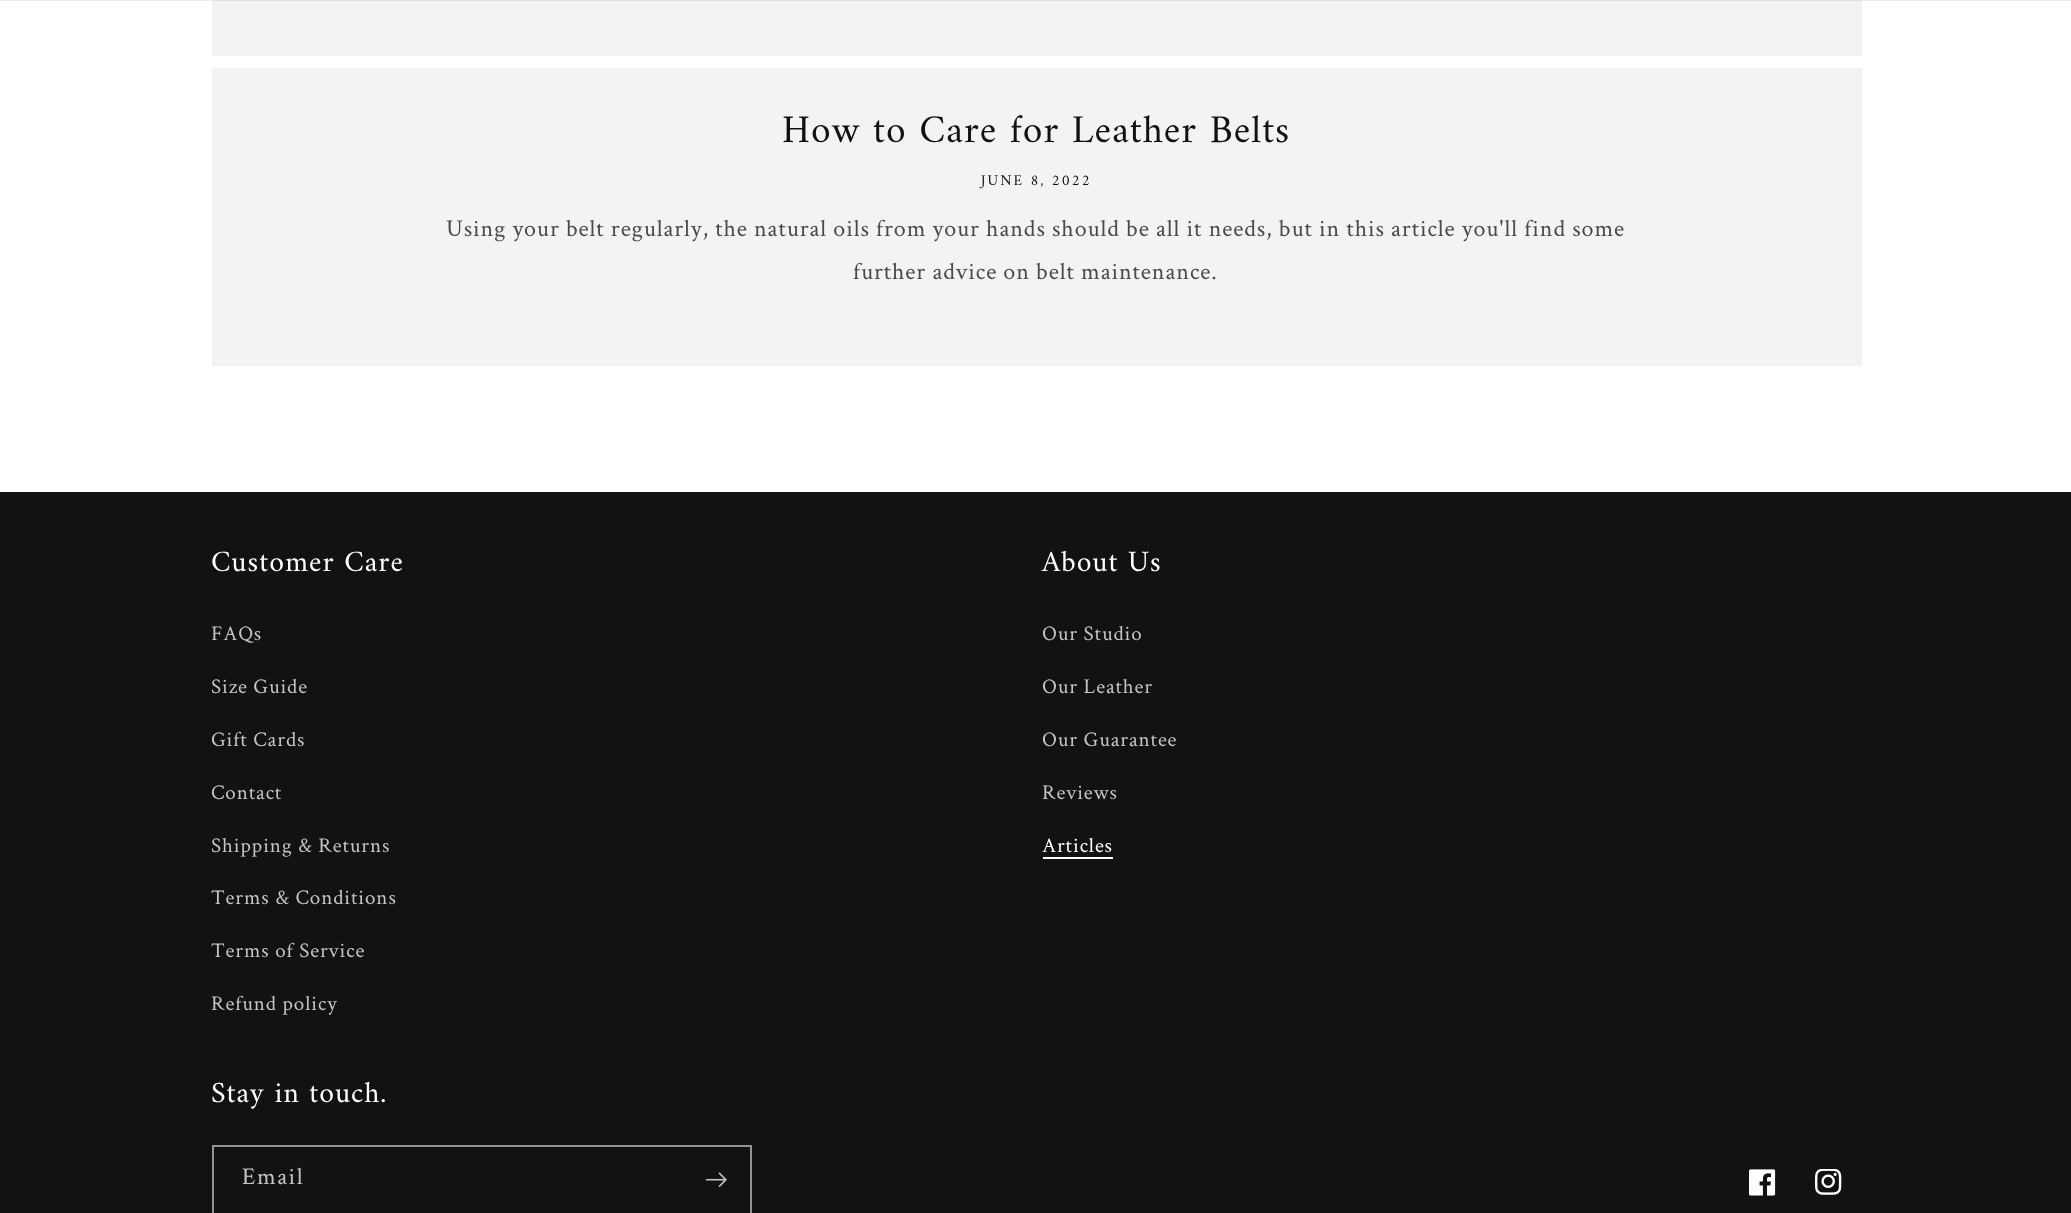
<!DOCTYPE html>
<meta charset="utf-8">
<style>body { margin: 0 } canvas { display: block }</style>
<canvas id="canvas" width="2071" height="1213"></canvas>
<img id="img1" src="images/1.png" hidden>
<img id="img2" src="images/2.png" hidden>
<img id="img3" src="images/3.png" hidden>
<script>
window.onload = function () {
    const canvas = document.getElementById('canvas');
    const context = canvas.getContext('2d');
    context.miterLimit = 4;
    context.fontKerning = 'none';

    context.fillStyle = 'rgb(255, 255, 255)';
    context.fillRect(0, 0, 2071, 1213);
    context.fillStyle = 'rgb(236, 236, 236)';
    context.fillRect(0, 0, 2071, 1);
    context.fillStyle = 'rgb(243, 243, 243)';
    context.fillRect(212, 1, 1650, 55);
    context.fillStyle = 'rgb(225, 225, 225)';
    context.fillRect(212, 0, 1650, 1);
    context.fillStyle = 'rgb(243, 243, 243)';
    context.fillRect(212, 68, 1650, 298);
    context.fillStyle = 'rgb(18, 18, 18)';
    context.fillRect(0, 492, 2071, 721);
    context.fillStyle = 'rgb(255, 255, 255)';
    context.fillRect(1043, 857, 70, 2);
    context.strokeStyle = 'rgb(148, 148, 148)';
    context.lineWidth = 2;
    context.strokeRect(213, 1146, 538, 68);
    context.drawImage(document.getElementById('img1'), 705, 1172, 22, 15);
    context.drawImage(document.getElementById('img2'), 1749, 1169, 27, 27);
    context.drawImage(document.getElementById('img3'), 1815, 1169, 27, 26);
    context.letterSpacing = '1px';
    context.font = '39.6px Amiri';
    context.fillStyle = 'rgb(18, 18, 18)';
    context.fillText('How to Care for Leather Belts', 782, 142);
    context.letterSpacing = '2px';
    context.font = '15px Amiri';
    context.fillText('JUNE 8, 2022', 981, 185);
    context.letterSpacing = '0.9px';
    context.font = '24px Crimson Text';
    context.fillStyle = 'rgb(74, 74, 74)';
    context.fillText('Using your belt regularly, the natural oils from your hands should be all it needs, but in this article you\'ll find some', 446, 236);
    context.fillText('further advice on belt maintenance.', 853, 279);
    context.letterSpacing = '1px';
    context.font = '29.75px Amiri';
    context.fillStyle = 'rgb(255, 255, 255)';
    context.fillText('Customer Care', 211, 571);
    context.letterSpacing = '0.9px';
    context.font = '21px Crimson Text';
    context.fillStyle = 'rgb(196, 196, 196)';
    context.fillText('FAQs', 211, 640);
    context.fillText('Size Guide', 211, 693);
    context.fillText('Gift Cards', 211, 746);
    context.fillText('Contact', 211, 799);
    context.fillText('Shipping & Returns', 211, 852);
    context.fillText('Terms & Conditions', 211, 904);
    context.fillText('Terms of Service', 211, 957);
    context.fillText('Refund policy', 211, 1010);
    context.letterSpacing = '1px';
    context.font = '29.75px Amiri';
    context.fillStyle = 'rgb(255, 255, 255)';
    context.fillText('About Us', 1042, 571);
    context.letterSpacing = '0.9px';
    context.font = '21px Crimson Text';
    context.fillStyle = 'rgb(196, 196, 196)';
    context.fillText('Our Studio', 1042, 640);
    context.fillText('Our Leather', 1042, 693);
    context.fillText('Our Guarantee', 1042, 746);
    context.fillText('Reviews', 1042, 799);
    context.fillStyle = 'rgb(255, 255, 255)';
    context.fillText('Articles', 1042, 852);
    context.letterSpacing = '1px';
    context.font = '29.75px Amiri';
    context.fillText('Stay in touch.', 211, 1102);
    context.letterSpacing = '1.5px';
    context.font = '24px Crimson Text';
    context.fillStyle = 'rgb(196, 196, 196)';
    context.fillText('Email', 242, 1184);
};
</script>
